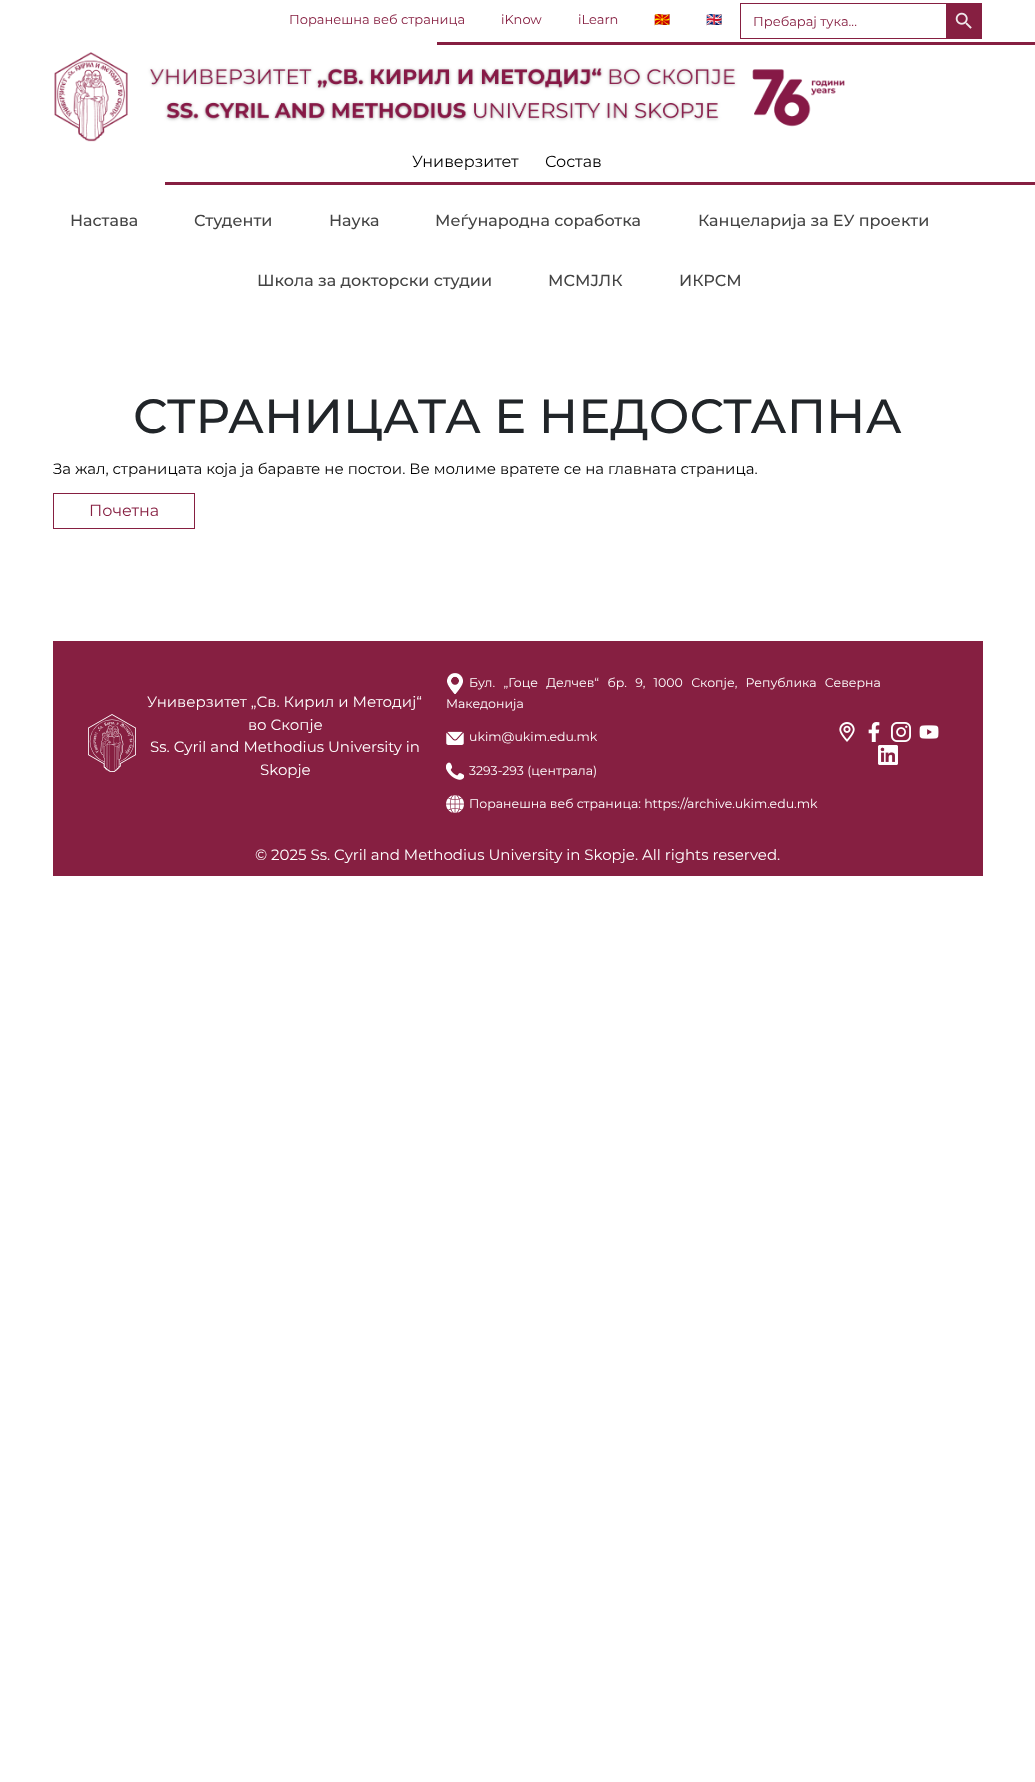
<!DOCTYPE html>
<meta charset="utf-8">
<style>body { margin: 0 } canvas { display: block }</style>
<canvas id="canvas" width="1035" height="1782"></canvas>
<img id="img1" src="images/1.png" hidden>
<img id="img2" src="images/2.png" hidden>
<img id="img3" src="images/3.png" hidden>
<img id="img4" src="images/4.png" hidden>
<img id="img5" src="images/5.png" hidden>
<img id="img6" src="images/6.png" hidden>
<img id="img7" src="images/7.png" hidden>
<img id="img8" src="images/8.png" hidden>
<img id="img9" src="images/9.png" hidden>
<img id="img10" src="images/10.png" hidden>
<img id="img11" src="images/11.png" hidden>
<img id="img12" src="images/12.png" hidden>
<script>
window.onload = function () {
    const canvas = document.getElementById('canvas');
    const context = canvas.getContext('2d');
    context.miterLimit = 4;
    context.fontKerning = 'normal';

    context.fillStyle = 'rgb(255, 255, 255)';
    context.fillRect(0, 0, 1035, 1782);
    context.fillStyle = 'rgb(134, 31, 65)';
    context.fillRect(740, 3, 206, 1);
    context.fillRect(740, 38, 206, 1);
    context.fillRect(740, 3, 1, 36);
    context.fillRect(946, 3, 36, 36);
    context.drawImage(document.getElementById('img1'), 955, 12, 17, 17);
    context.fillRect(437, 42, 598, 3);
    context.drawImage(document.getElementById('img2'), 54, 52, 791, 90);
    context.fillRect(165, 182, 870, 3);
    context.strokeStyle = 'rgb(134, 31, 65)';
    context.strokeRect(53.5, 493.5, 141, 35);
    context.fillRect(53, 641, 930, 235);
    context.drawImage(document.getElementById('img3'), 88, 714, 48, 58);
    context.drawImage(document.getElementById('img4'), 447, 673, 16, 21);
    context.drawImage(document.getElementById('img5'), 446, 731, 18, 14);
    context.drawImage(document.getElementById('img6'), 446, 762, 18, 18);
    context.drawImage(document.getElementById('img7'), 446, 795, 18, 18);
    context.drawImage(document.getElementById('img8'), 839, 722, 16, 20);
    context.drawImage(document.getElementById('img9'), 868, 722, 12, 20);
    context.drawImage(document.getElementById('img10'), 891, 722, 20, 20);
    context.drawImage(document.getElementById('img11'), 919, 725, 20, 14);
    context.drawImage(document.getElementById('img12'), 878, 745, 20, 20);
    context.font = '13px Montserrat';
    context.fillText('Поранешна веб страница', 289, 24);
    context.fillText('iKnow', 501, 24);
    context.fillText('iLearn', 578, 24);
    context.font = '13px Noto Color Emoji';
    context.fillText('🇲🇰', 654, 24);
    context.fillText('🇬🇧', 706, 24);
    context.font = '13px Montserrat';
    context.fillText('Пребарај тука...', 753, 26);
    context.font = '16px Montserrat';
    context.fillStyle = 'rgb(0, 0, 0)';
    context.fillText('Универзитет', 412, 167);
    context.fillText('Состав', 545, 167);
    context.font = '500 16px Montserrat';
    context.fillStyle = 'rgb(68, 68, 68)';
    context.fillText('Настава', 70, 226);
    context.fillText('Студенти', 194, 226);
    context.fillText('Наука', 329, 226);
    context.fillText('Меѓународна соработка', 435, 226);
    context.fillText('Канцеларија за ЕУ проекти', 698, 226);
    context.fillText('Школа за докторски студии', 257, 286);
    context.fillText('МСМЈЛК', 548, 286);
    context.fillText('ИКРСМ', 679, 286);
    context.font = '500 48px Montserrat';
    context.fillStyle = 'rgb(33, 37, 41)';
    context.fillText('СТРАНИЦАТА Е НЕДОСТАПНА', 133, 433);
    context.font = '15px Montserrat';
    context.fillStyle = 'rgb(0, 0, 0)';
    context.fillText('За жал, страницата која ја баравте не постои. Ве молиме вратете се на главната страница.', 53, 474);
    context.font = '16px Montserrat';
    context.fillStyle = 'rgb(134, 31, 65)';
    context.fillText('Почетна', 89, 516);
    context.font = '15px Montserrat';
    context.fillStyle = 'rgb(255, 255, 255)';
    context.fillText('Универзитет „Св. Кирил и Методиј“', 147, 707);
    context.fillText('во Скопје', 248, 730);
    context.fillText('Ss. Cyril and Methodius University in', 150, 752);
    context.fillText('Skopje', 260, 775);
    context.wordSpacing = '5px';
    context.font = '12.5px Montserrat';
    context.fillText('Бул. „Гоце Делчев“ бр. 9, 1000 Скопје, Република Северна', 469, 687);
    context.wordSpacing = '0px';
    context.fillText('Македонија', 446, 708);
    context.fillText('ukim@ukim.edu.mk', 469, 741);
    context.fillText('3293-293 (централа)', 469, 775);
    context.fillText('Поранешна веб страница: https://archive.ukim.edu.mk', 469, 808);
    context.font = '15px Montserrat';
    context.fillText('© 2025 Ss. Cyril and Methodius University in Skopje. All rights reserved.', 255, 860);
};
</script>
